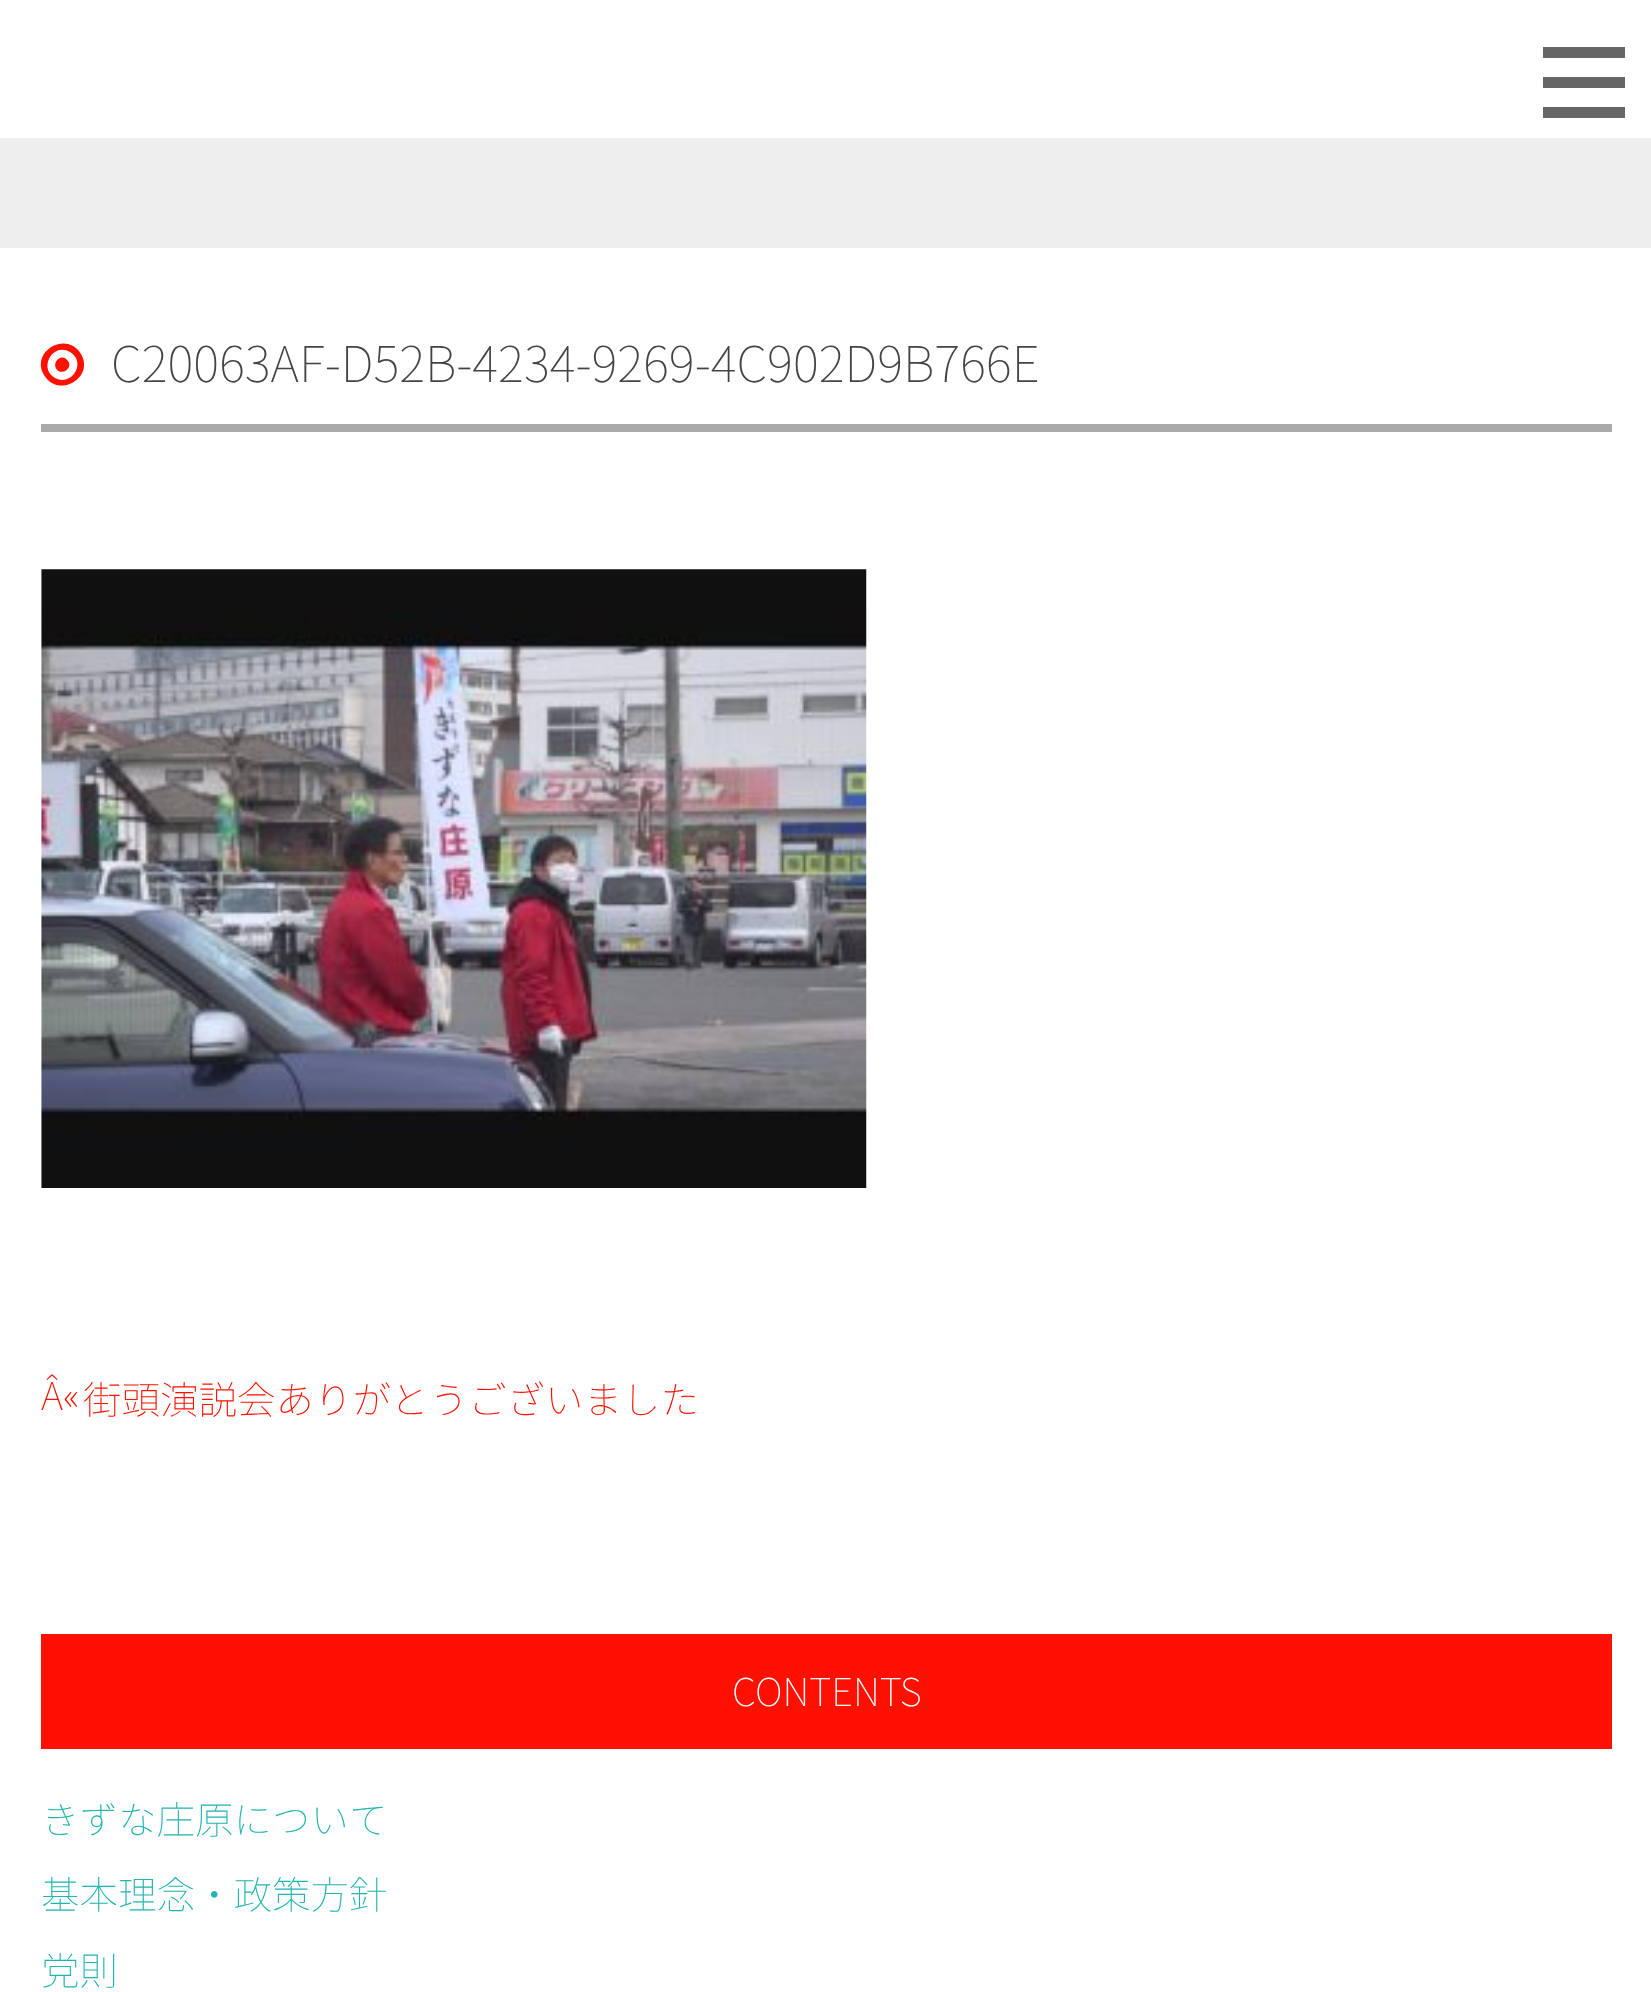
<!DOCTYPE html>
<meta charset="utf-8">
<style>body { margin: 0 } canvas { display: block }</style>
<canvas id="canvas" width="1651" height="1992"></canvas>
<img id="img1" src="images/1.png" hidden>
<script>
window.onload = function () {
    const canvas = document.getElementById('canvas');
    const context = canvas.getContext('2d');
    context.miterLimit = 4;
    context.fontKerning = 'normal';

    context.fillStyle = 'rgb(255, 255, 255)';
    context.fillRect(0, 0, 1651, 1992);
    context.fillStyle = 'rgb(102, 102, 102)';
    context.fillRect(1543, 47, 82, 11);
    context.fillRect(1543, 77, 82, 11);
    context.fillRect(1543, 107, 82, 11);
    context.fillStyle = 'rgb(238, 238, 238)';
    context.fillRect(0, 138, 1651, 110);
    context.fillStyle = 'rgb(170, 170, 170)';
    context.fillRect(41, 424, 1571, 8);
    context.fillStyle = 'rgb(255, 16, 0)';
    context.beginPath();
    context.moveTo(67, 360);
    context.bezierCurveTo(74, 366, 64, 376, 57, 370);
    context.bezierCurveTo(51, 363, 61, 353, 67, 360);
    context.closePath();
    context.moveTo(70, 352);
    context.bezierCurveTo(53, 342, 38, 368, 55, 378);
    context.bezierCurveTo(72, 387, 87, 362, 70, 352);
    context.closePath();
    context.moveTo(81, 354);
    context.bezierCurveTo(95, 378, 58, 399, 44, 375);
    context.bezierCurveTo(30, 351, 67, 330, 81, 354);
    context.closePath();
    context.fill();
    context.drawImage(document.getElementById('img1'), 41, 569, 826, 619);
    context.fillRect(41, 1634, 1571, 115);
    context.font = '100 49.5px Noto Sans JP';
    context.fillStyle = 'rgb(68, 68, 68)';
    context.fillText('C20063AF-D52B-4234-9269-4C902D9B766E', 111, 382);
    context.font = '100 38.5px Noto Sans JP';
    context.fillStyle = 'rgb(255, 16, 0)';
    context.fillText('Â«', 41, 1410);
    context.fillText('街頭演説会ありがとうございました', 83, 1414);
    context.fillStyle = 'rgb(255, 255, 255)';
    context.fillText('CONTENTS', 732, 1706);
    context.fillStyle = 'rgb(32, 181, 175)';
    context.fillText('きずな庄原について', 41, 1834);
    context.fillText('基本理念・政策方針', 41, 1909);
    context.fillText('党則', 41, 1985);
};
</script>
